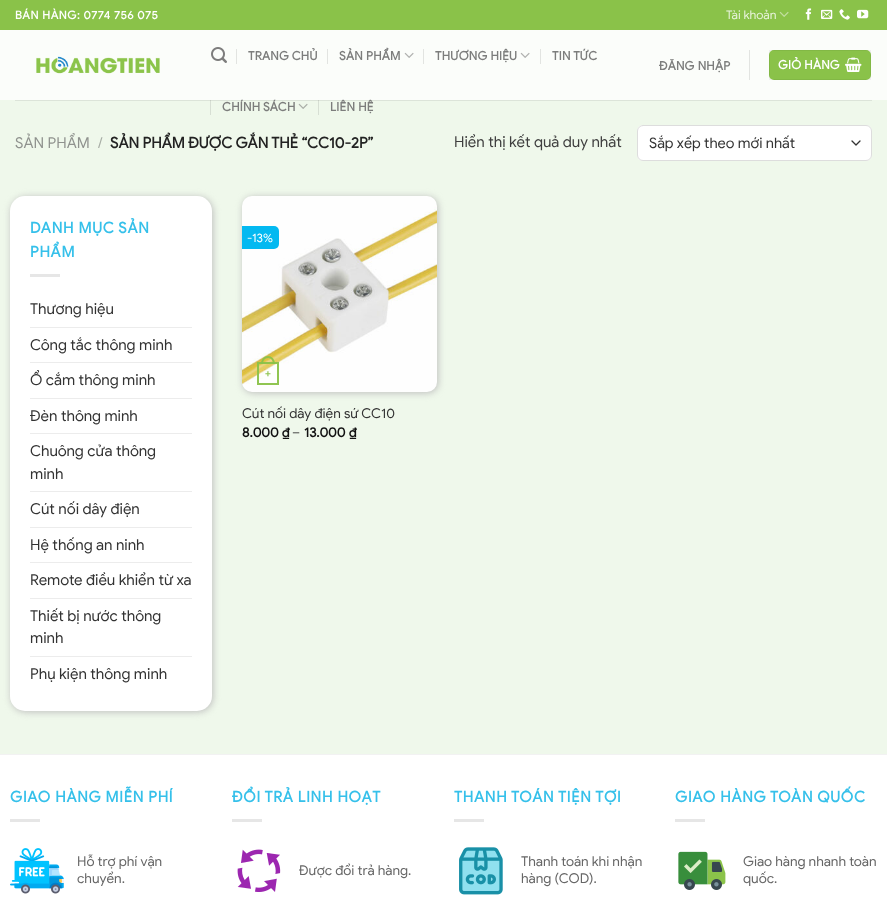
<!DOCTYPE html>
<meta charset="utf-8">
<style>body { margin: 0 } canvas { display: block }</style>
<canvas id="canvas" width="887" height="899"></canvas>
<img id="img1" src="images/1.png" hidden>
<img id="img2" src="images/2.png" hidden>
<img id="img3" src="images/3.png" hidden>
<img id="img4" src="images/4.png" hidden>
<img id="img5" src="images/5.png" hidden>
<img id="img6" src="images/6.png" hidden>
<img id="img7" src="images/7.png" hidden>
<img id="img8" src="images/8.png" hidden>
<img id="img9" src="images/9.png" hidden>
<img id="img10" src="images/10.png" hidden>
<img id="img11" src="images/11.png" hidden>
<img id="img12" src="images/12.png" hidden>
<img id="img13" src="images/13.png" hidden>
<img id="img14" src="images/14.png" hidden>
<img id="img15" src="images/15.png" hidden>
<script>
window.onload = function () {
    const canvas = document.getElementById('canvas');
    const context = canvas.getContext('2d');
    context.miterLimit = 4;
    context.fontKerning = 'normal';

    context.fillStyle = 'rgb(239, 248, 235)';
    context.fillRect(0, 0, 887, 899);
    context.fillStyle = 'rgb(138, 194, 73)';
    context.fillRect(0, 0, 887, 30);
    context.drawImage(document.getElementById('img1'), 779, 11, 10, 6);
    context.drawImage(document.getElementById('img2'), 805, 8, 7, 12);
    context.drawImage(document.getElementById('img3'), 821, 9, 12, 10);
    context.drawImage(document.getElementById('img4'), 839, 9, 11, 11);
    context.drawImage(document.getElementById('img5'), 857, 9, 12, 10);
    context.fillStyle = 'rgb(251, 253, 250)';
    context.fillRect(0, 30, 887, 70);
    context.drawImage(document.getElementById('img6'), 36, 56, 124, 18);
    context.drawImage(document.getElementById('img7'), 211, 47, 16, 16);
    context.fillStyle = 'rgb(226, 228, 225)';
    context.fillRect(236, 49, 1, 15);
    context.fillRect(327, 49, 1, 15);
    context.drawImage(document.getElementById('img8'), 404, 52, 10, 6);
    context.fillRect(423, 49, 1, 15);
    context.drawImage(document.getElementById('img8'), 520, 52, 10, 6);
    context.fillRect(540, 49, 1, 15);
    context.fillStyle = 'rgb(215, 223, 212)';
    context.fillRect(210, 100, 1, 15);
    context.drawImage(document.getElementById('img9'), 298, 103, 10, 6);
    context.fillRect(318, 100, 1, 15);
    context.fillStyle = 'rgb(226, 228, 225)';
    context.fillRect(749, 50, 1, 30);
    context.fillStyle = 'rgb(138, 194, 73)';
    context.beginPath();
    context.roundRect(769, 50, 102, 30, 5);
    context.fill();
    context.strokeStyle = 'rgba(0, 0, 0, 0.05)';
    context.strokeRect(769.5, 50.5, 101, 29);
    context.drawImage(document.getElementById('img10'), 845, 57, 17, 15);
    context.fillStyle = 'rgba(63, 63, 63, 0.1)';
    context.fillRect(15, 100, 857, 1);
    context.fillStyle = 'rgb(255, 255, 255)';
    context.beginPath();
    context.roundRect(637, 125, 235, 36, 6);
    context.fill();
    context.beginPath();
    context.moveTo(852, 141);
    context.lineTo(856, 145);
    context.lineTo(860, 141);
    context.strokeStyle = 'rgb(51, 51, 51)';
    context.lineWidth = 1.3;
    context.lineCap = 'round';
    context.lineJoin = 'round';
    context.stroke();
    context.beginPath();
    context.roundRect(637.5, 125.5, 234, 35, 5.5);
    context.strokeStyle = 'rgb(221, 221, 221)';
    context.lineWidth = 1;
    context.lineJoin = 'miter';
    context.stroke();
    context.fillStyle = 'rgb(189, 189, 189)';
    context.filter = 'blur(3.5px)';
    context.beginPath();
    context.roundRect(11, 197, 202, 515, 15);
    context.fill();
    context.filter = 'none';
    context.fillStyle = 'rgb(255, 255, 255)';
    context.beginPath();
    context.roundRect(10, 196, 202, 515, 15);
    context.fill();
    context.fillStyle = 'rgb(230, 230, 230)';
    context.fillRect(30, 274, 30, 3);
    context.fillStyle = 'rgb(236, 236, 236)';
    context.fillRect(30, 327, 162, 1);
    context.fillRect(30, 362, 162, 1);
    context.fillRect(30, 398, 162, 1);
    context.fillRect(30, 433, 162, 1);
    context.fillRect(30, 491, 162, 1);
    context.fillRect(30, 527, 162, 1);
    context.fillRect(30, 562, 162, 1);
    context.fillRect(30, 598, 162, 1);
    context.fillRect(30, 656, 162, 1);
    context.fillStyle = 'rgb(189, 189, 189)';
    context.filter = 'blur(3.5px)';
    context.beginPath();
    context.roundRect(243, 197, 195, 196, 10);
    context.fill();
    context.filter = 'none';
    context.drawImage(document.getElementById('img11'), 242, 196, 195, 196);
    context.fillStyle = 'rgb(3, 185, 241)';
    context.beginPath();
    context.roundRect(242, 226, 37, 23, [0, 5, 5, 0]);
    context.fill();
    context.strokeStyle = 'rgba(138, 194, 73, 0.95)';
    context.lineWidth = 2;
    context.strokeRect(258, 363, 20, 21);
    context.fillStyle = 'rgba(138, 194, 73, 0.95)';
    context.beginPath();
    context.moveTo(268, 356);
    context.bezierCurveTo(272.5, 356, 275, 360, 275, 364);
    context.lineTo(261, 364);
    context.bezierCurveTo(261, 360, 263.5, 356, 268, 356);
    context.closePath();
    context.moveTo(268, 358);
    context.bezierCurveTo(271.5, 358, 273, 361, 273, 364);
    context.lineTo(263, 364);
    context.bezierCurveTo(263, 361, 264.5, 358, 268, 358);
    context.closePath();
    context.fill('evenodd');
    context.fillStyle = 'rgb(255, 255, 255)';
    context.fillRect(0, 755, 887, 144);
    context.fillStyle = 'rgb(242, 242, 242)';
    context.fillRect(0, 754, 887, 1);
    context.fillStyle = 'rgb(230, 230, 230)';
    context.fillRect(10, 819, 30, 3);
    context.drawImage(document.getElementById('img12'), 10, 848, 54, 46);
    context.fillRect(232, 819, 30, 3);
    context.drawImage(document.getElementById('img13'), 237, 849, 44, 43);
    context.fillRect(454, 819, 30, 3);
    context.drawImage(document.getElementById('img14'), 459, 847, 44, 48);
    context.fillRect(675, 819, 30, 3);
    context.drawImage(document.getElementById('img15'), 678, 851, 48, 39);
    context.letterSpacing = '0.6px';
    context.font = 'bold 11.25px Google Sans';
    context.fillStyle = 'rgb(255, 255, 255)';
    context.fillText('BÁN HÀNG: 0774 756 075', 15, 19);
    context.letterSpacing = '0px';
    context.font = '12px Google Sans';
    context.fillStyle = 'rgb(232, 243, 219)';
    context.fillText('Tài khoản', 726, 19);
    context.letterSpacing = '0.25px';
    context.font = 'bold 12px Google Sans';
    context.fillStyle = 'rgb(124, 125, 124)';
    context.fillText('TRANG CHỦ', 248, 60);
    context.fillText('SẢN PHẨM', 339, 60);
    context.fillText('THƯƠNG HIỆU', 435, 60);
    context.fillText('TIN TỨC', 552, 60);
    context.fillText('CHÍNH SÁCH', 222, 111);
    context.fillText('LIÊN HỆ', 330, 111);
    context.fillText('ĐĂNG NHẬP', 659, 70);
    context.fillStyle = 'rgb(255, 255, 255)';
    context.fillText('GIỎ HÀNG', 778, 69);
    context.letterSpacing = '0px';
    context.font = '15px Google Sans';
    context.fillStyle = 'rgb(143, 146, 142)';
    context.fillText('SẢN PHẨM', 15, 148);
    context.fillStyle = 'rgb(167, 173, 165)';
    context.fillText('/', 98, 148);
    context.font = 'bold 15px Google Sans';
    context.fillStyle = 'rgb(34, 34, 34)';
    context.fillText('SẢN PHẨM ĐƯỢC GẮN THẺ “CC10-2P”', 110, 148);
    context.font = '15px Google Sans';
    context.fillStyle = 'rgb(63, 63, 63)';
    context.fillText('Hiển thị kết quả duy nhất', 454, 147);
    context.font = '14.5px Google Sans';
    context.fillStyle = 'rgb(51, 51, 51)';
    context.fillText('Sắp xếp theo mới nhất', 649, 148);
    context.letterSpacing = '0.75px';
    context.font = 'bold 15px Google Sans';
    context.fillStyle = 'rgb(53, 192, 234)';
    context.fillText('DANH MỤC SẢN', 30, 233);
    context.fillText('PHẨM', 30, 257);
    context.letterSpacing = '0px';
    context.font = '15px Google Sans';
    context.fillStyle = 'rgb(51, 51, 51)';
    context.fillText('Thương hiệu', 30, 314);
    context.fillText('Công tắc thông minh', 30, 350);
    context.fillText('Ổ cắm thông minh', 30, 385);
    context.fillText('Đèn thông minh', 30, 421);
    context.fillText('Chuông cửa thông', 30, 456);
    context.fillText('minh', 30, 479);
    context.fillText('Cút nối dây điện', 30, 514);
    context.fillText('Hệ thống an ninh', 30, 550);
    context.fillText('Remote điều khiển từ xa', 30, 585);
    context.fillText('Thiết bị nước thông', 30, 621);
    context.fillText('minh', 30, 643);
    context.fillText('Phụ kiện thông minh', 30, 679);
    context.font = '12px Google Sans';
    context.fillStyle = 'rgb(255, 255, 255)';
    context.fillText('-13%', 247, 242);
    context.font = 'bold 10px Liberation Sans';
    context.fillStyle = 'rgb(144, 197, 82)';
    context.fillText('+', 265, 377);
    context.font = '13.5px Google Sans';
    context.fillStyle = 'rgb(51, 51, 51)';
    context.fillText('Cút nối dây điện sứ CC10', 242, 418);
    context.font = 'bold 13.5px Google Sans';
    context.fillStyle = 'rgb(17, 17, 17)';
    context.fillText('8.000 ₫', 242, 437);
    context.font = '13.5px Google Sans';
    context.fillStyle = 'rgb(63, 63, 63)';
    context.fillText('–', 292, 437);
    context.font = 'bold 13.5px Google Sans';
    context.fillStyle = 'rgb(17, 17, 17)';
    context.fillText('13.000 ₫', 304, 437);
    context.letterSpacing = '0.75px';
    context.font = 'bold 15px Google Sans';
    context.fillStyle = 'rgb(53, 192, 234)';
    context.fillText('GIAO HÀNG MIỄN PHÍ', 10, 802);
    context.letterSpacing = '0px';
    context.font = '13.5px Google Sans';
    context.fillStyle = 'rgb(102, 102, 102)';
    context.fillText('Hỗ trợ phí vận', 77, 866);
    context.fillText('chuyển.', 77, 883);
    context.letterSpacing = '0.75px';
    context.font = 'bold 15px Google Sans';
    context.fillStyle = 'rgb(53, 192, 234)';
    context.fillText('ĐỔI TRẢ LINH HOẠT', 232, 802);
    context.letterSpacing = '0px';
    context.font = '13.5px Google Sans';
    context.fillStyle = 'rgb(102, 102, 102)';
    context.fillText('Được đổi trả hàng.', 299, 875);
    context.letterSpacing = '0.75px';
    context.font = 'bold 15px Google Sans';
    context.fillStyle = 'rgb(53, 192, 234)';
    context.fillText('THANH TOÁN TIỆN TỢI', 454, 802);
    context.letterSpacing = '0px';
    context.font = '13.5px Google Sans';
    context.fillStyle = 'rgb(102, 102, 102)';
    context.fillText('Thanh toán khi nhận', 521, 866);
    context.fillText('hàng (COD).', 521, 883);
    context.letterSpacing = '0.75px';
    context.font = 'bold 15px Google Sans';
    context.fillStyle = 'rgb(53, 192, 234)';
    context.fillText('GIAO HÀNG TOÀN QUỐC', 675, 802);
    context.letterSpacing = '0px';
    context.font = '13.5px Google Sans';
    context.fillStyle = 'rgb(102, 102, 102)';
    context.fillText('Giao hàng nhanh toàn', 743, 866);
    context.fillText('quốc.', 743, 883);
};
</script>
